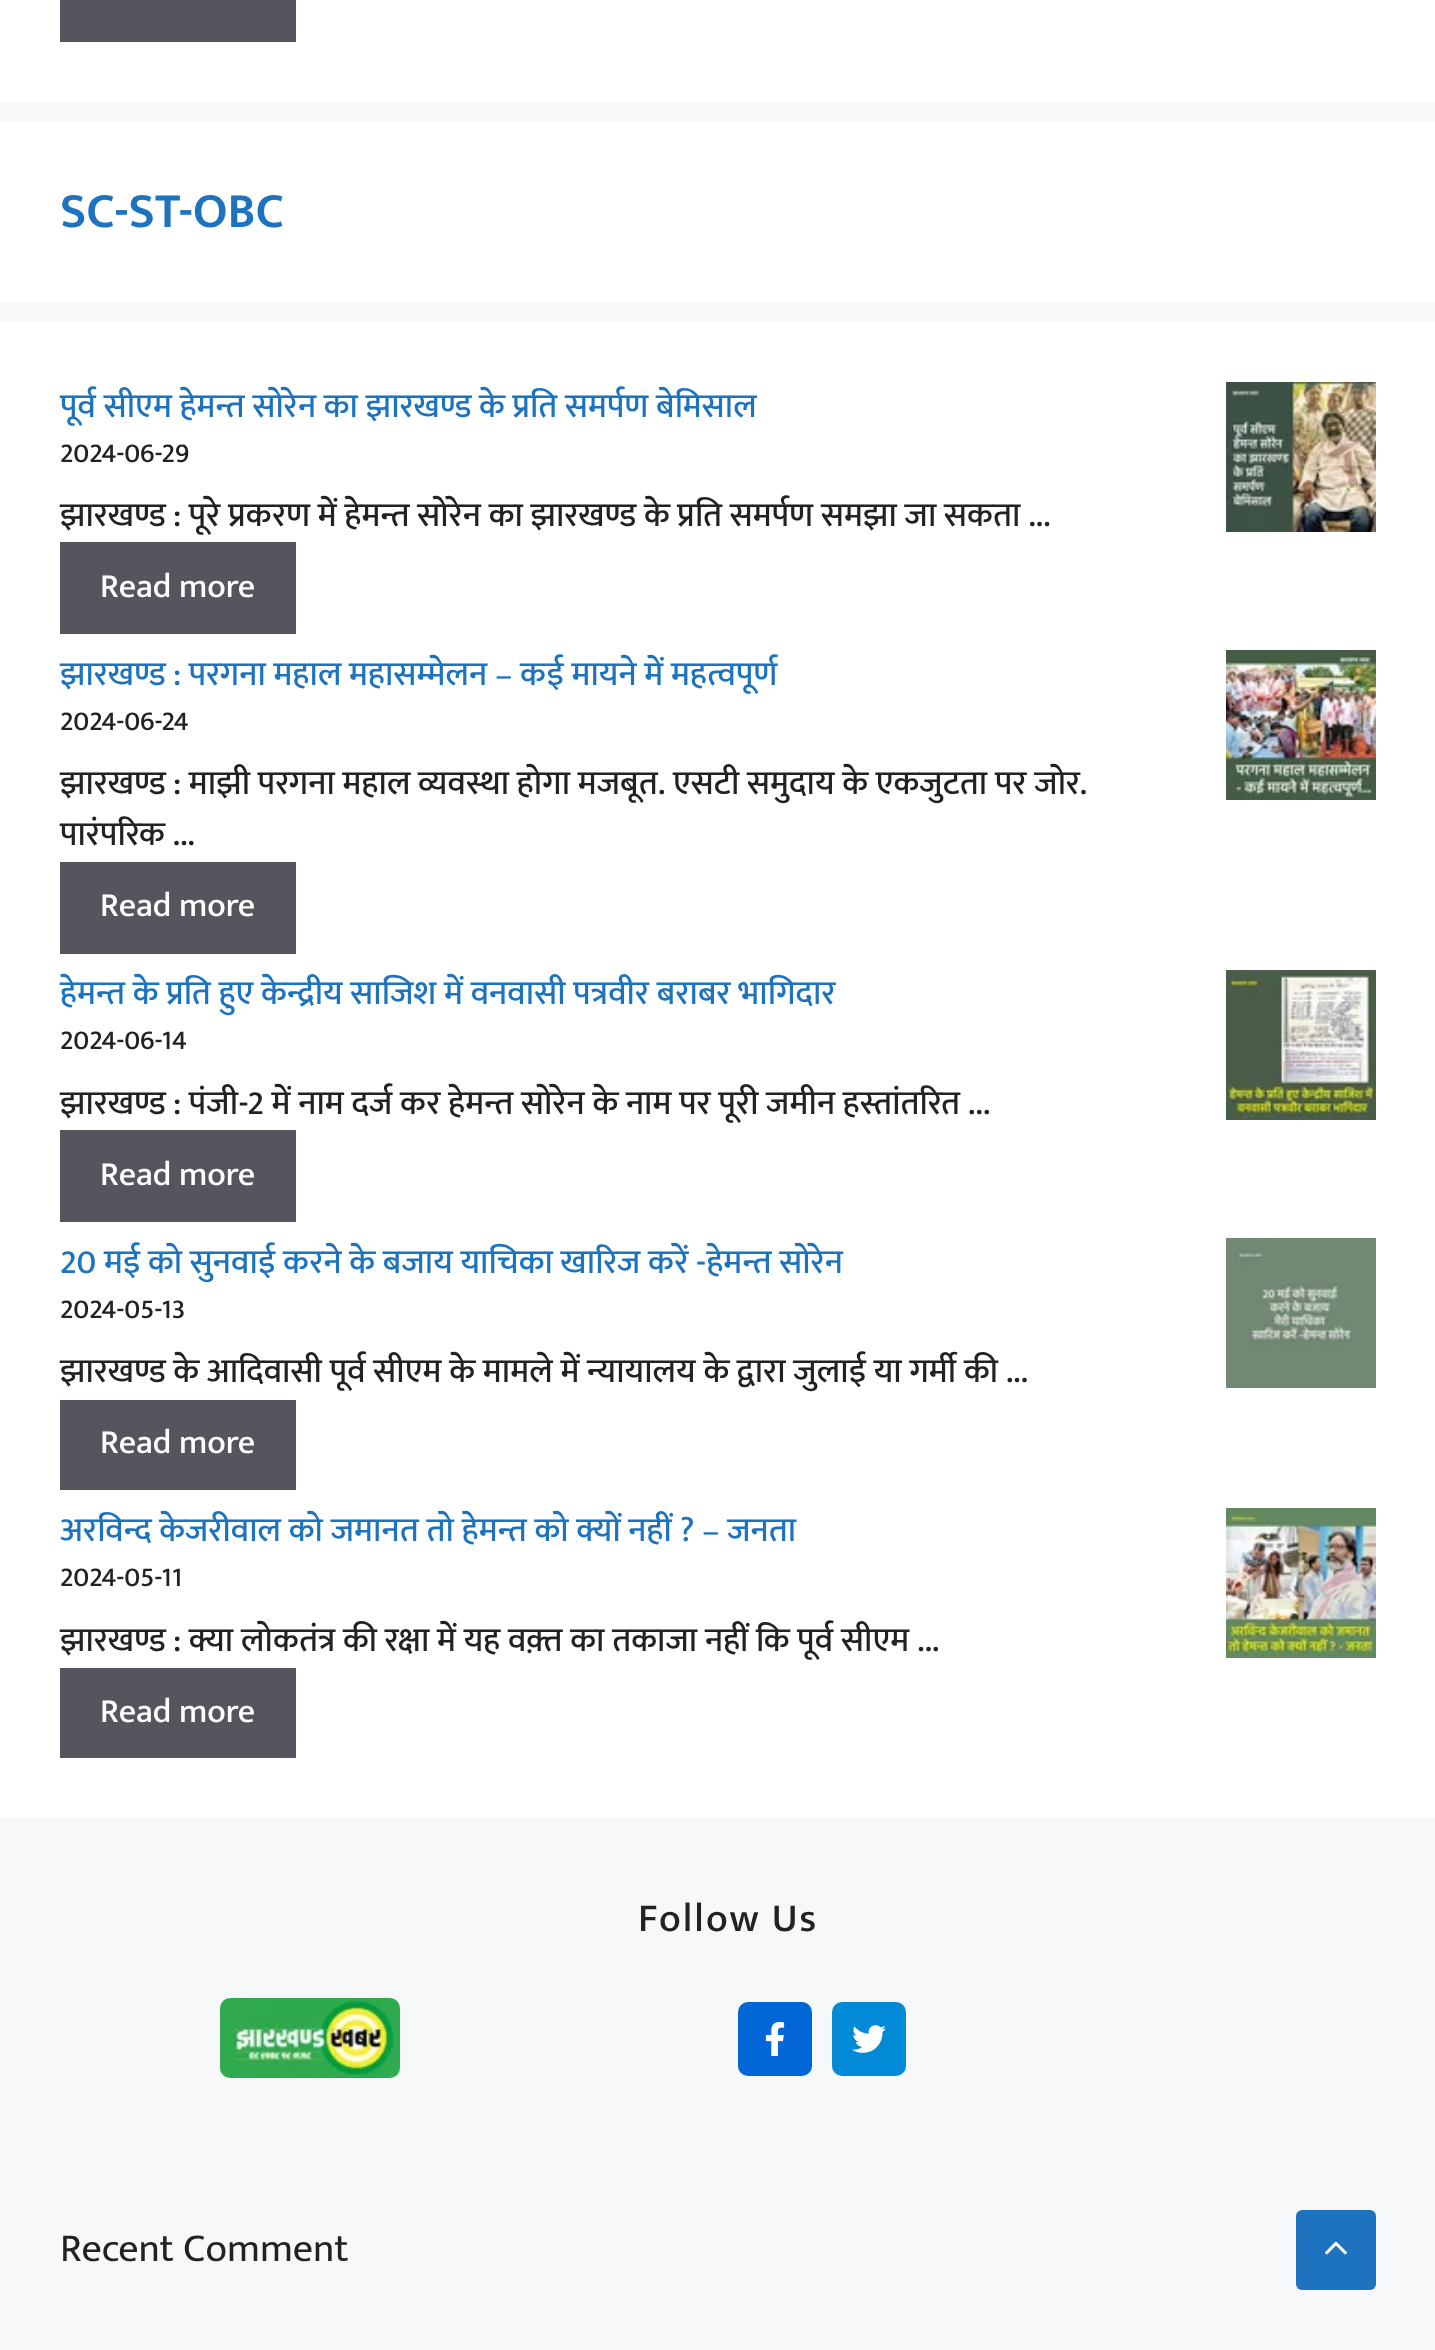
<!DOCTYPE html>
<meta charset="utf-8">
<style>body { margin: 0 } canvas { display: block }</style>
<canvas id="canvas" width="1435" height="2350"></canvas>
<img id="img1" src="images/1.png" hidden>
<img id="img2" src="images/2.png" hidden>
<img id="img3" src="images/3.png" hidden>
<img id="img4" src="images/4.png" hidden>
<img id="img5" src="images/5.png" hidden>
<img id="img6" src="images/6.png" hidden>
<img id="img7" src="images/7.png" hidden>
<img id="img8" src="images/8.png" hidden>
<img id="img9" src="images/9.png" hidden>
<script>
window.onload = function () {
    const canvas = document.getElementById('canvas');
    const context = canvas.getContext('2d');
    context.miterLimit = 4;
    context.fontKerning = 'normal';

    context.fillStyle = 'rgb(247, 248, 249)';
    context.fillRect(0, 0, 1435, 2350);
    context.fillStyle = 'rgb(255, 255, 255)';
    context.fillRect(0, 0, 1435, 102);
    context.fillStyle = 'rgb(85, 85, 94)';
    context.fillRect(60, 0, 236, 42);
    context.fillStyle = 'rgb(255, 255, 255)';
    context.fillRect(0, 122, 1435, 180);
    context.fillRect(0, 322, 1435, 1496);
    context.drawImage(document.getElementById('img1'), 1226, 382, 150, 150);
    context.fillStyle = 'rgb(85, 85, 94)';
    context.fillRect(60, 542, 236, 92);
    context.drawImage(document.getElementById('img2'), 1226, 650, 150, 150);
    context.fillRect(60, 862, 236, 92);
    context.drawImage(document.getElementById('img3'), 1226, 970, 150, 150);
    context.fillRect(60, 1130, 236, 92);
    context.drawImage(document.getElementById('img4'), 1226, 1238, 150, 150);
    context.fillRect(60, 1400, 236, 90);
    context.drawImage(document.getElementById('img5'), 1226, 1508, 150, 150);
    context.fillRect(60, 1668, 236, 90);
    context.drawImage(document.getElementById('img6'), 220, 1998, 180, 80);
    context.fillStyle = 'rgb(3, 102, 214)';
    context.beginPath();
    context.roundRect(738, 2002, 74, 74, 10);
    context.fill();
    context.drawImage(document.getElementById('img7'), 765, 2022, 20, 34);
    context.fillStyle = 'rgb(2, 138, 214)';
    context.beginPath();
    context.roundRect(832, 2002, 74, 74, 10);
    context.fill();
    context.drawImage(document.getElementById('img8'), 852, 2025, 34, 28);
    context.fillStyle = 'rgb(30, 115, 190)';
    context.beginPath();
    context.roundRect(1296, 2210, 80, 80, 6);
    context.fill();
    context.drawImage(document.getElementById('img9'), 1325, 2241, 22, 14);
    context.font = '600 50px Mukta';
    context.fillText('SC-ST-OBC', 60, 227);
    context.font = '500 34px Mukta';
    context.fillText('पूर्व सीएम हेमन्त सोरेन का झारखण्ड के प्रति समर्पण बेमिसाल', 60, 417);
    context.font = '500 27.5px Mukta';
    context.fillStyle = 'rgb(34, 34, 34)';
    context.fillText('2024-06-29', 60, 462);
    context.font = '500 34px Mukta';
    context.fillText('झारखण्ड : पूरे प्रकरण में हेमन्त सोरेन का झारखण्ड के प्रति समर्पण समझा जा सकता ...', 60, 526);
    context.fillStyle = 'rgb(255, 255, 255)';
    context.fillText('Read more', 100, 597);
    context.fillStyle = 'rgb(30, 115, 190)';
    context.fillText('झारखण्ड : परगना महाल महासम्मेलन – कई मायने में महत्वपूर्ण', 60, 685);
    context.font = '500 27.5px Mukta';
    context.fillStyle = 'rgb(34, 34, 34)';
    context.fillText('2024-06-24', 60, 730);
    context.font = '500 34px Mukta';
    context.fillText('झारखण्ड : माझी परगना महाल व्यवस्था होगा मजबूत. एसटी समुदाय के एकजुटता पर जोर.', 60, 794);
    context.fillText('पारंपरिक ...', 60, 845);
    context.fillStyle = 'rgb(255, 255, 255)';
    context.fillText('Read more', 100, 916);
    context.fillStyle = 'rgb(30, 115, 190)';
    context.fillText('हेमन्त के प्रति हुए केन्द्रीय साजिश में वनवासी पत्रवीर बराबर भागिदार', 60, 1004);
    context.font = '500 27.5px Mukta';
    context.fillStyle = 'rgb(34, 34, 34)';
    context.fillText('2024-06-14', 60, 1049);
    context.font = '500 34px Mukta';
    context.fillText('झारखण्ड : पंजी-2 में नाम दर्ज कर हेमन्त सोरेन के नाम पर पूरी जमीन हस्तांतरित ...', 60, 1114);
    context.fillStyle = 'rgb(255, 255, 255)';
    context.fillText('Read more', 100, 1185);
    context.fillStyle = 'rgb(30, 115, 190)';
    context.fillText('20 मई को सुनवाई करने के बजाय याचिका खारिज करें -हेमन्त सोरेन', 60, 1273);
    context.font = '500 27.5px Mukta';
    context.fillStyle = 'rgb(34, 34, 34)';
    context.fillText('2024-05-13', 60, 1318);
    context.font = '500 34px Mukta';
    context.fillText('झारखण्ड के आदिवासी पूर्व सीएम के मामले में न्यायालय के द्वारा जुलाई या गर्मी की ...', 60, 1382);
    context.fillStyle = 'rgb(255, 255, 255)';
    context.fillText('Read more', 100, 1453);
    context.fillStyle = 'rgb(30, 115, 190)';
    context.fillText('अरविन्द केजरीवाल को जमानत तो हेमन्त को क्यों नहीं ? – जनता', 60, 1541);
    context.font = '500 27.5px Mukta';
    context.fillStyle = 'rgb(34, 34, 34)';
    context.fillText('2024-05-11', 60, 1586);
    context.font = '500 34px Mukta';
    context.fillText('झारखण्ड : क्या लोकतंत्र की रक्षा में यह वक़्त का तकाजा नहीं कि पूर्व सीएम ...', 60, 1651);
    context.fillStyle = 'rgb(255, 255, 255)';
    context.fillText('Read more', 100, 1722);
    context.letterSpacing = '2px';
    context.font = '500 40px Mukta';
    context.fillStyle = 'rgb(34, 34, 34)';
    context.fillText('Follow Us', 638, 1931);
    context.letterSpacing = '0px';
    context.font = '40px Mukta';
    context.fillText('Recent Comment', 60, 2261);
};
</script>
